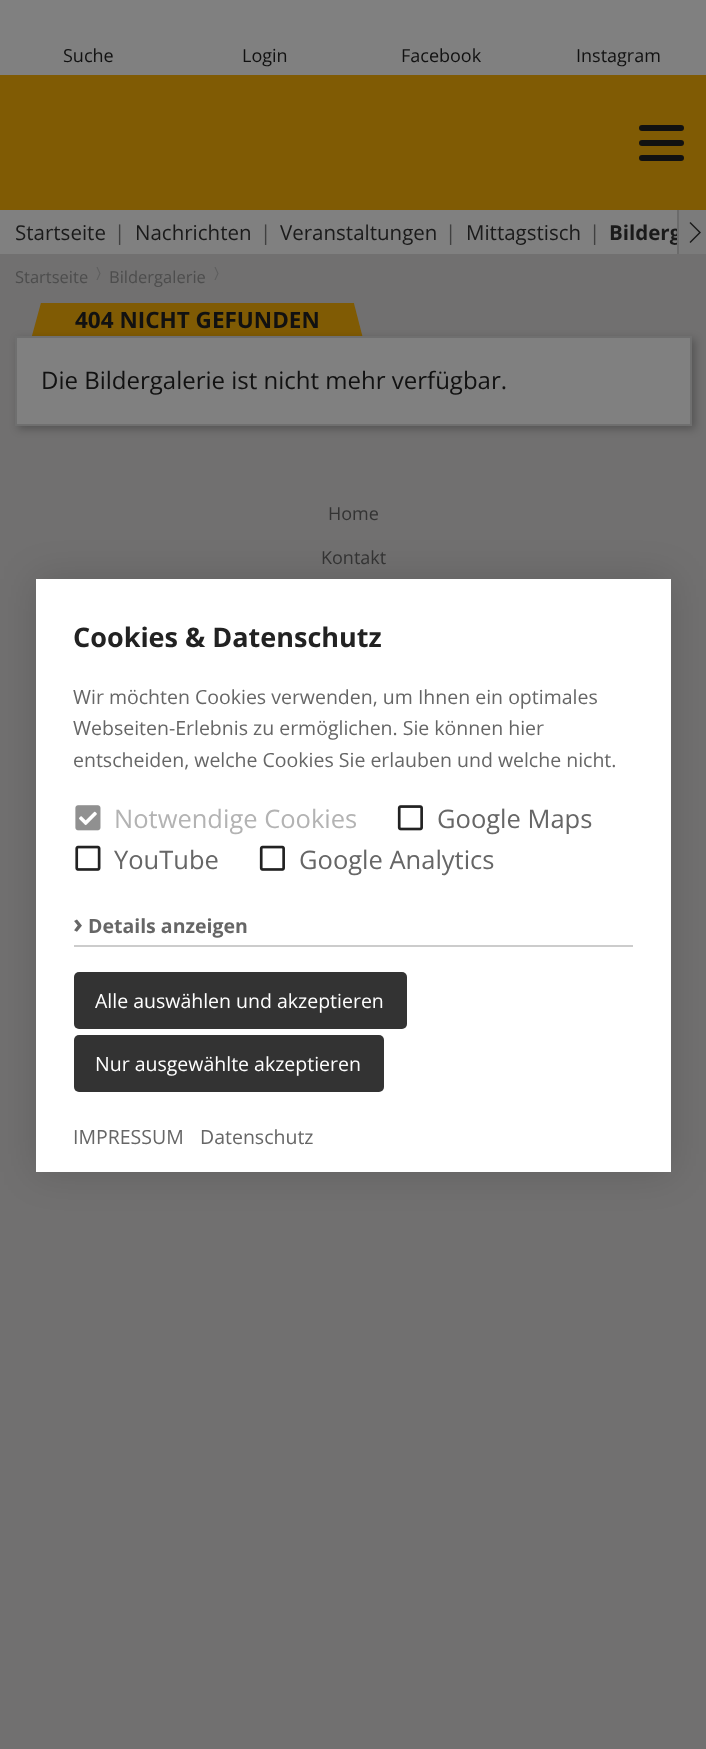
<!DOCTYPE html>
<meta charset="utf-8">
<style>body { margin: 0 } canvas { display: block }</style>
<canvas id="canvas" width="706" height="1749"></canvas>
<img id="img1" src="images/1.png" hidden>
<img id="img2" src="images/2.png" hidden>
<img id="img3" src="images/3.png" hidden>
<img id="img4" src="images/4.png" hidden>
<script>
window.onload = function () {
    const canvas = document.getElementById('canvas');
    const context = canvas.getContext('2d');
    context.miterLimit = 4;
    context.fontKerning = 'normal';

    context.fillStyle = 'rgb(113, 112, 112)';
    context.fillRect(0, 0, 706, 1749);
    context.fillStyle = 'rgb(128, 91, 4)';
    context.fillRect(0, 75, 706, 135);
    context.fillStyle = 'rgb(128, 128, 128)';
    context.fillRect(0, 0, 706, 75);
    context.fillStyle = 'rgb(17, 17, 17)';
    context.beginPath();
    context.roundRect(639, 140, 45, 6, 3);
    context.fill();
    context.beginPath();
    context.roundRect(639, 125, 45, 6, 3);
    context.fill();
    context.beginPath();
    context.roundRect(639, 155, 45, 6, 3);
    context.fill();
    context.fillStyle = 'rgb(128, 128, 128)';
    context.fillRect(0, 210, 677, 44);
    context.fillStyle = 'rgb(128, 91, 4)';
    context.fillRect(31, 303, 332, 33);
    context.save();
    context.beginPath();
    context.rect(15, 303, 365, 33);
    context.clip();
    context.fillStyle = 'rgb(113, 112, 112)';
    context.beginPath();
    context.moveTo(-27, 268);
    context.lineTo(45, 288);
    context.lineTo(27, 354);
    context.lineTo(-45, 334);
    context.closePath();
    context.fill();
    context.beginPath();
    context.moveTo(350, 288);
    context.lineTo(422, 268);
    context.lineTo(440, 334);
    context.lineTo(367, 354);
    context.closePath();
    context.fill();
    context.restore();
    context.fillStyle = 'rgba(0, 0, 0, 0.25)';
    context.filter = 'blur(4px)';
    context.beginPath();
    context.rect(18, 339, 677, 90);
    context.fill();
    context.filter = 'none';
    context.fillStyle = 'rgb(128, 128, 128)';
    context.beginPath();
    context.rect(16, 337, 675, 88);
    context.fill();
    context.strokeStyle = 'rgb(111, 111, 111)';
    context.lineWidth = 2;
    context.stroke();
    context.fillStyle = 'rgba(0, 0, 0, 0.15)';
    context.filter = 'blur(19px)';
    context.beginPath();
    context.rect(36, 579, 635, 593);
    context.fill();
    context.filter = 'none';
    context.fillStyle = 'rgb(255, 255, 255)';
    context.fillRect(36, 579, 635, 593);
    context.drawImage(document.getElementById('img1'), 75, 805, 26, 26);
    context.drawImage(document.getElementById('img2'), 397, 805, 26, 26);
    context.drawImage(document.getElementById('img3'), 75, 845, 26, 26);
    context.drawImage(document.getElementById('img4'), 259, 845, 26, 26);
    context.fillStyle = 'rgb(204, 204, 204)';
    context.fillRect(74, 945, 559, 2);
    context.fillStyle = 'rgb(51, 51, 51)';
    context.beginPath();
    context.roundRect(74, 972, 333, 57, 5);
    context.fill();
    context.beginPath();
    context.roundRect(74, 1035, 310, 57, 5);
    context.fill();
    context.font = '18px Open Sans';
    context.fillStyle = 'rgb(17, 17, 17)';
    context.fillText('Suche', 63, 62);
    context.fillText('Login', 242, 62);
    context.fillText('Facebook', 401, 62);
    context.fillText('Instagram', 576, 62);
    context.font = '20.5px Open Sans';
    context.fillStyle = 'rgb(26, 26, 26)';
    context.fillText('Startseite', 15, 240);
    context.fillStyle = 'rgb(128, 128, 128)';
    context.beginPath();
    context.moveTo(7, 232.5);
    context.lineTo(17.5, 222);
    context.lineTo(18.5, 223);
    context.lineTo(9, 232.5);
    context.lineTo(18.5, 242);
    context.lineTo(17.5, 243);
    context.closePath();
    context.fill();
    context.fillStyle = 'rgb(64, 64, 64)';
    context.fillText('|', 114, 240);
    context.fillStyle = 'rgb(26, 26, 26)';
    context.fillText('Nachrichten', 135, 240);
    context.fillStyle = 'rgb(64, 64, 64)';
    context.fillText('|', 260, 240);
    context.fillStyle = 'rgb(26, 26, 26)';
    context.fillText('Veranstaltungen', 280, 240);
    context.fillStyle = 'rgb(64, 64, 64)';
    context.fillText('|', 445, 240);
    context.fillStyle = 'rgb(26, 26, 26)';
    context.fillText('Mittagstisch', 466, 240);
    context.fillStyle = 'rgb(64, 64, 64)';
    context.fillText('|', 589, 240);
    context.font = 'bold 20.5px Open Sans';
    context.fillStyle = 'rgb(26, 26, 26)';
    context.fillText('Bilderg', 609, 240);
    context.fillStyle = 'rgb(123, 123, 123)';
    context.fillRect(679, 210, 27, 44);
    context.fillStyle = 'rgb(26, 26, 26)';
    context.beginPath();
    context.moveTo(701, 232.5);
    context.lineTo(690.5, 243);
    context.lineTo(689.5, 242);
    context.lineTo(699, 232.5);
    context.lineTo(689.5, 223);
    context.lineTo(690.5, 222);
    context.closePath();
    context.fill();
    context.fillStyle = 'rgb(107, 107, 107)';
    context.fillRect(677, 210, 2, 44);
    context.font = '16.5px Open Sans';
    context.fillStyle = 'rgb(77, 77, 77)';
    context.fillText('Startseite', 15, 283);
    context.font = '15px FreeSans';
    context.fillStyle = 'rgb(94, 94, 94)';
    context.fillText('〉', 96, 278);
    context.font = '16.5px Open Sans';
    context.fillStyle = 'rgb(77, 77, 77)';
    context.fillText('Bildergalerie', 109, 283);
    context.font = '15px FreeSans';
    context.fillStyle = 'rgb(94, 94, 94)';
    context.fillText('〉', 214, 278);
    context.font = 'bold 22.5px Open Sans';
    context.fillStyle = 'rgb(17, 17, 17)';
    context.fillText('404 NICHT GEFUNDEN', 75, 328);
    context.font = '24px Open Sans';
    context.fillText('Die Bildergalerie ist nicht mehr verfügbar.', 41, 389);
    context.font = '18px Open Sans';
    context.fillStyle = 'rgb(51, 51, 51)';
    context.fillText('Home', 328, 520);
    context.fillText('Kontakt', 321, 564);
    context.font = 'bold 27px Open Sans';
    context.fillStyle = 'rgb(34, 34, 34)';
    context.fillText('Cookies & Datenschutz', 73, 647);
    context.font = '19.5px Open Sans';
    context.fillStyle = 'rgb(102, 102, 102)';
    context.fillText('Wir möchten Cookies verwenden, um Ihnen ein optimales', 73, 704);
    context.fillText('Webseiten-Erlebnis zu ermöglichen. Sie können hier', 73, 735);
    context.fillText('entscheiden, welche Cookies Sie erlauben und welche nicht.', 73, 767);
    context.font = '25.5px Open Sans';
    context.fillStyle = 'rgb(179, 179, 179)';
    context.fillText('Notwendige Cookies', 114, 828);
    context.fillStyle = 'rgb(102, 102, 102)';
    context.fillText('Google Maps', 437, 828);
    context.fillText('YouTube', 114, 869);
    context.fillText('Google Analytics', 299, 869);
    context.font = 'bold 27px Open Sans';
    context.fillText('›', 73, 933);
    context.font = 'bold 19.5px Open Sans';
    context.fillText('Details anzeigen', 88, 933);
    context.font = '19.5px Open Sans';
    context.fillStyle = 'rgb(255, 255, 255)';
    context.fillText('Alle auswählen und akzeptieren', 95, 1008);
    context.fillText('Nur ausgewählte akzeptieren', 95, 1071);
    context.fillStyle = 'rgb(102, 102, 102)';
    context.fillText('IMPRESSUM', 73, 1144);
    context.fillText('Datenschutz', 200, 1144);
};
</script>
